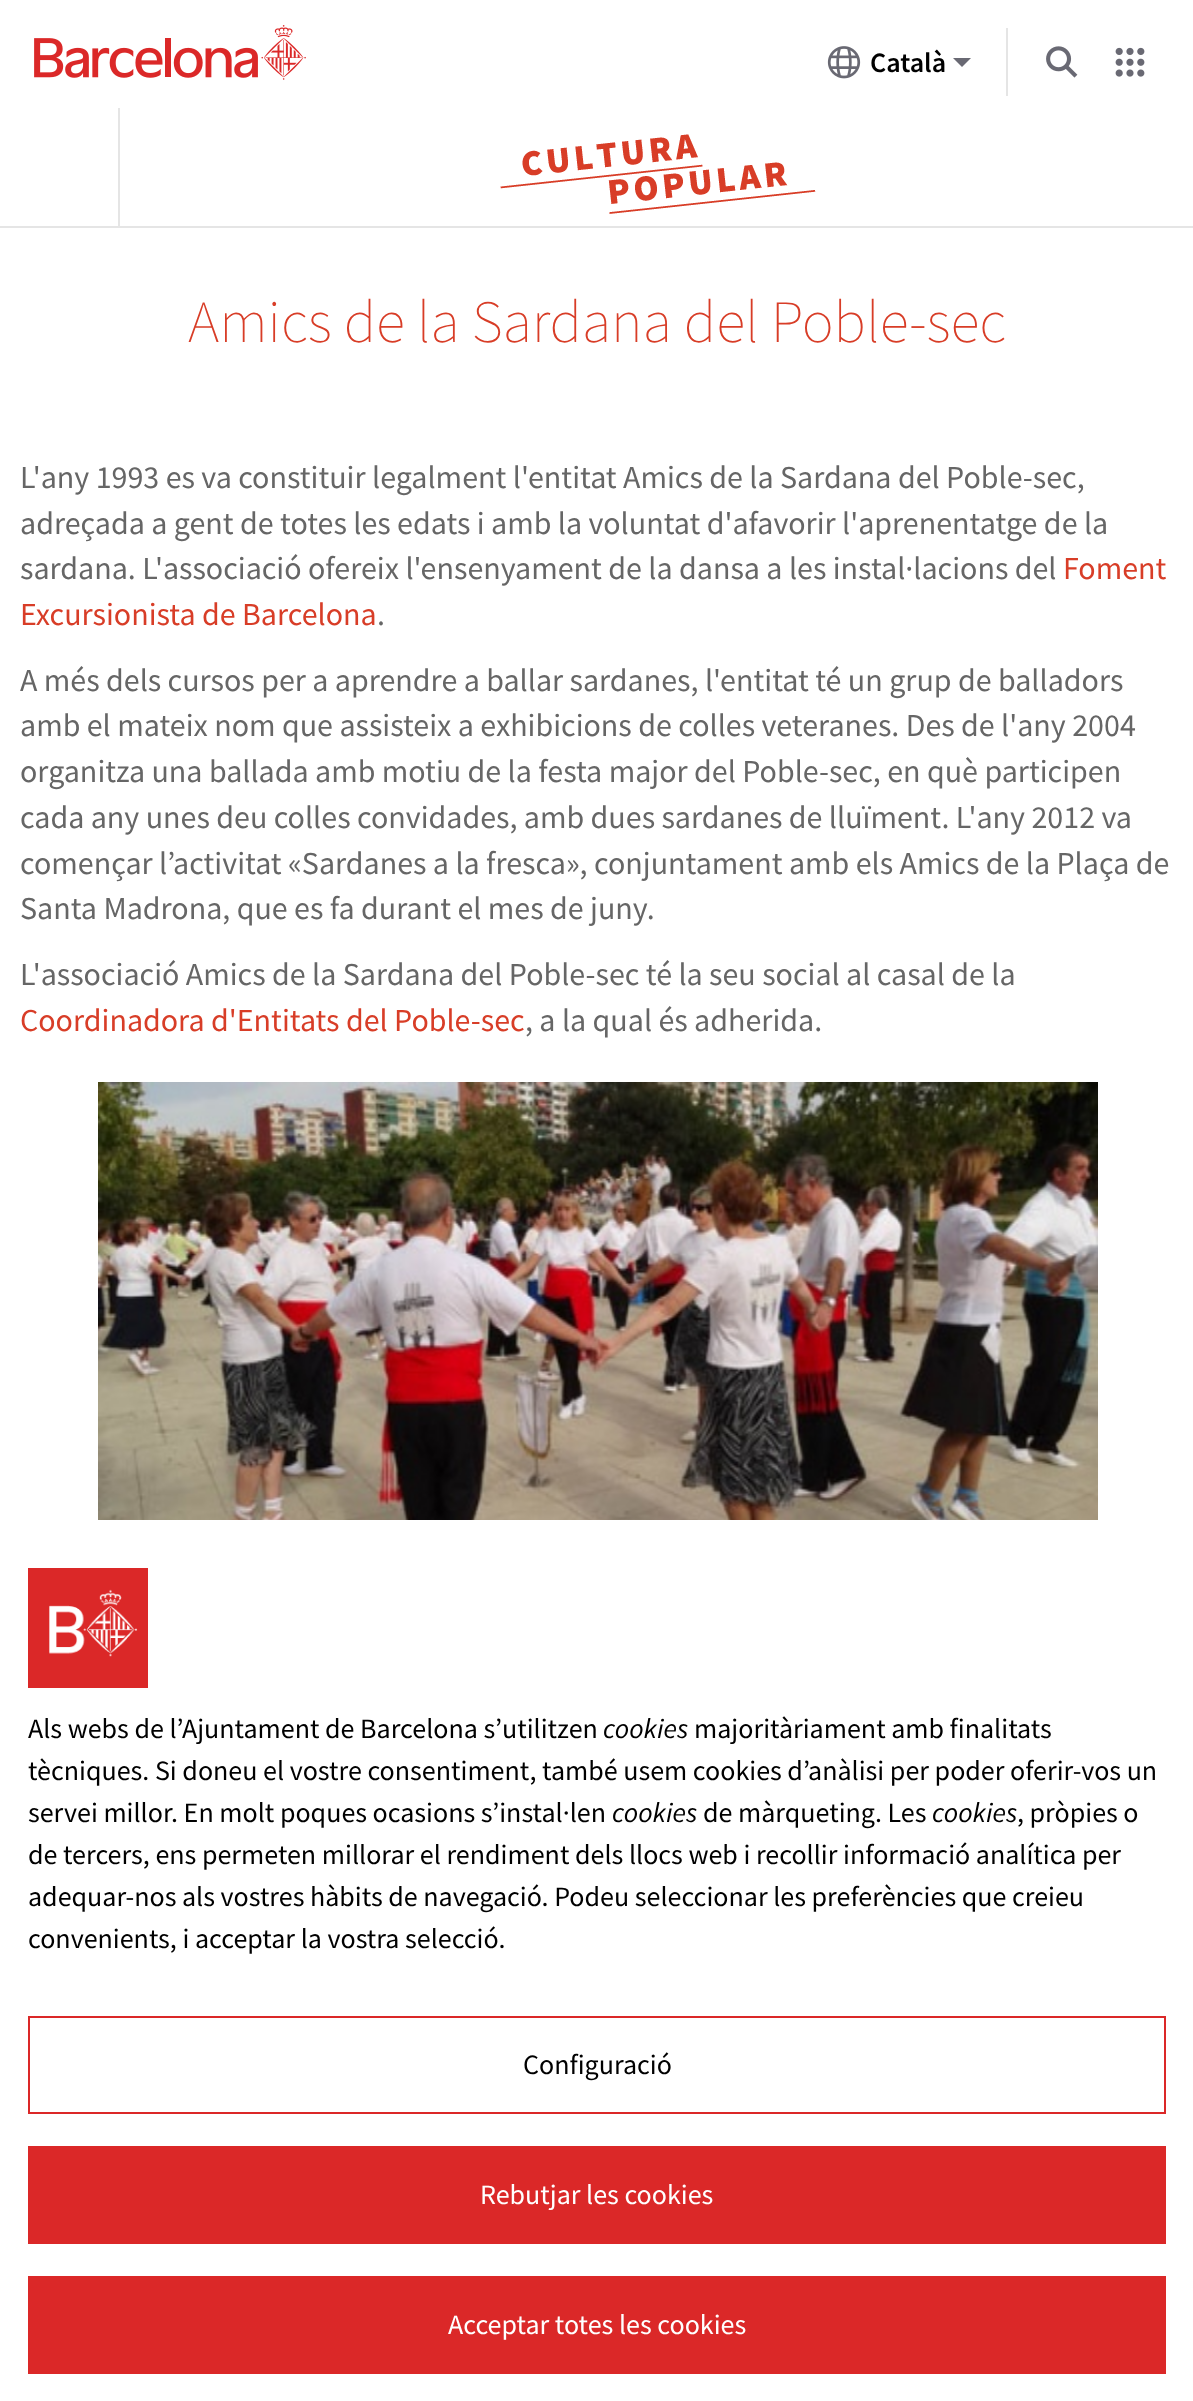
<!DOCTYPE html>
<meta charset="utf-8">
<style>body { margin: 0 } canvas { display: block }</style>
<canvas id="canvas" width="1193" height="2401"></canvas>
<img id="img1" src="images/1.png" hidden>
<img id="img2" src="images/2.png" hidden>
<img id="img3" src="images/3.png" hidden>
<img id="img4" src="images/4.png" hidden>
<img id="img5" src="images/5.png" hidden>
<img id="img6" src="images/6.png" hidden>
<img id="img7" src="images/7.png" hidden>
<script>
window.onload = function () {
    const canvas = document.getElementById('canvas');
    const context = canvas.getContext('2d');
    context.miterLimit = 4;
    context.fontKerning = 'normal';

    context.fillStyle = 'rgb(255, 255, 255)';
    context.fillRect(0, 0, 1193, 2401);
    context.drawImage(document.getElementById('img1'), 34, 25, 272, 55);
    context.fillStyle = 'rgb(229, 229, 229)';
    context.fillRect(1006, 28, 2, 68);
    context.drawImage(document.getElementById('img2'), 827, 46, 34, 33);
    context.fillStyle = 'rgb(105, 105, 115)';
    context.beginPath();
    context.moveTo(953, 58);
    context.lineTo(962, 67);
    context.lineTo(971, 58);
    context.closePath();
    context.fill();
    context.drawImage(document.getElementById('img3'), 1046, 46, 32, 32);
    context.drawImage(document.getElementById('img4'), 1115, 47, 30, 30);
    context.fillStyle = 'rgb(229, 229, 229)';
    context.fillRect(0, 226, 1193, 2);
    context.fillRect(118, 108, 2, 120);
    context.drawImage(document.getElementById('img5'), 500, 134, 316, 80);
    context.drawImage(document.getElementById('img6'), 98, 1082, 1000, 438);
    context.drawImage(document.getElementById('img7'), 28, 1568, 120, 120);
    context.strokeStyle = 'rgb(219, 40, 40)';
    context.lineWidth = 2;
    context.strokeRect(29, 2017, 1136, 96);
    context.fillStyle = 'rgb(219, 40, 40)';
    context.fillRect(28, 2146, 1138, 98);
    context.fillRect(28, 2276, 1138, 98);
    context.font = '600 28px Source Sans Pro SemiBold';
    context.fillStyle = 'rgb(0, 0, 0)';
    context.fillText('Català', 870, 72);
    context.font = '200 60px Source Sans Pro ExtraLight';
    context.fillStyle = 'rgb(216, 61, 39)';
    context.fillText('Amics de la Sardana del Poble-sec', 188, 342);
    context.font = '32px Source Sans Pro';
    context.fillStyle = 'rgb(102, 102, 102)';
    context.fillText('L\'any 1993 es va constituir legalment l\'entitat Amics de la Sardana del Poble-sec,', 20, 488);
    context.fillText('adreçada a gent de totes les edats i amb la voluntat d\'afavorir l\'aprenentatge de la', 20, 534);
    context.fillText('sardana. L\'associació ofereix l\'ensenyament de la dansa a les instal·lacions del', 20, 579);
    context.fillStyle = 'rgb(216, 61, 39)';
    context.fillText('Foment', 1063, 579);
    context.fillText('Excursionista de Barcelona', 20, 625);
    context.fillStyle = 'rgb(102, 102, 102)';
    context.fillText('.', 377, 625);
    context.fillText('A més dels cursos per a aprendre a ballar sardanes, l\'entitat té un grup de balladors', 20, 691);
    context.fillText('amb el mateix nom que assisteix a exhibicions de colles veteranes. Des de l\'any 2004', 20, 736);
    context.fillText('organitza una ballada amb motiu de la festa major del Poble-sec, en què participen', 20, 782);
    context.fillText('cada any unes deu colles convidades, amb dues sardanes de lluïment. L\'any 2012 va', 20, 828);
    context.fillText('començar l’activitat «Sardanes a la fresca», conjuntament amb els Amics de la Plaça de', 20, 874);
    context.fillText('Santa Madrona, que es fa durant el mes de juny.', 20, 919);
    context.fillText('L\'associació Amics de la Sardana del Poble-sec té la seu social al casal de la', 20, 985);
    context.fillStyle = 'rgb(216, 61, 39)';
    context.fillText('Coordinadora d\'Entitats del Poble-sec', 20, 1031);
    context.fillStyle = 'rgb(102, 102, 102)';
    context.fillText(', a la qual és adherida.', 525, 1031);
    context.font = '28px Source Sans Pro';
    context.fillStyle = 'rgb(0, 0, 0)';
    context.fillText('Als webs de l’Ajuntament de Barcelona s’utilitzen', 28, 1738);
    context.font = 'italic 28px Source Sans Pro';
    context.fillText('cookies', 603, 1738);
    context.font = '28px Source Sans Pro';
    context.fillText('majoritàriament amb finalitats', 694, 1738);
    context.fillText('tècniques. Si doneu el vostre consentiment, també usem cookies d’anàlisi per poder oferir-vos un', 28, 1780);
    context.fillText('servei millor. En molt poques ocasions s’instal·len', 28, 1822);
    context.font = 'italic 28px Source Sans Pro';
    context.fillText('cookies', 612, 1822);
    context.font = '28px Source Sans Pro';
    context.fillText('de màrqueting. Les', 703, 1822);
    context.font = 'italic 28px Source Sans Pro';
    context.fillText('cookies', 932, 1822);
    context.font = '28px Source Sans Pro';
    context.fillText(', pròpies o', 1017, 1822);
    context.fillText('de tercers, ens permeten millorar el rendiment dels llocs web i recollir informació analítica per', 28, 1864);
    context.fillText('adequar-nos als vostres hàbits de navegació. Podeu seleccionar les preferències que creieu', 28, 1906);
    context.fillText('convenients, i acceptar la vostra selecció.', 28, 1948);
    context.fillText('Configuració', 523, 2074);
    context.fillStyle = 'rgb(255, 255, 255)';
    context.fillText('Rebutjar les cookies', 480, 2204);
    context.fillText('Acceptar totes les cookies', 448, 2334);
};
</script>
